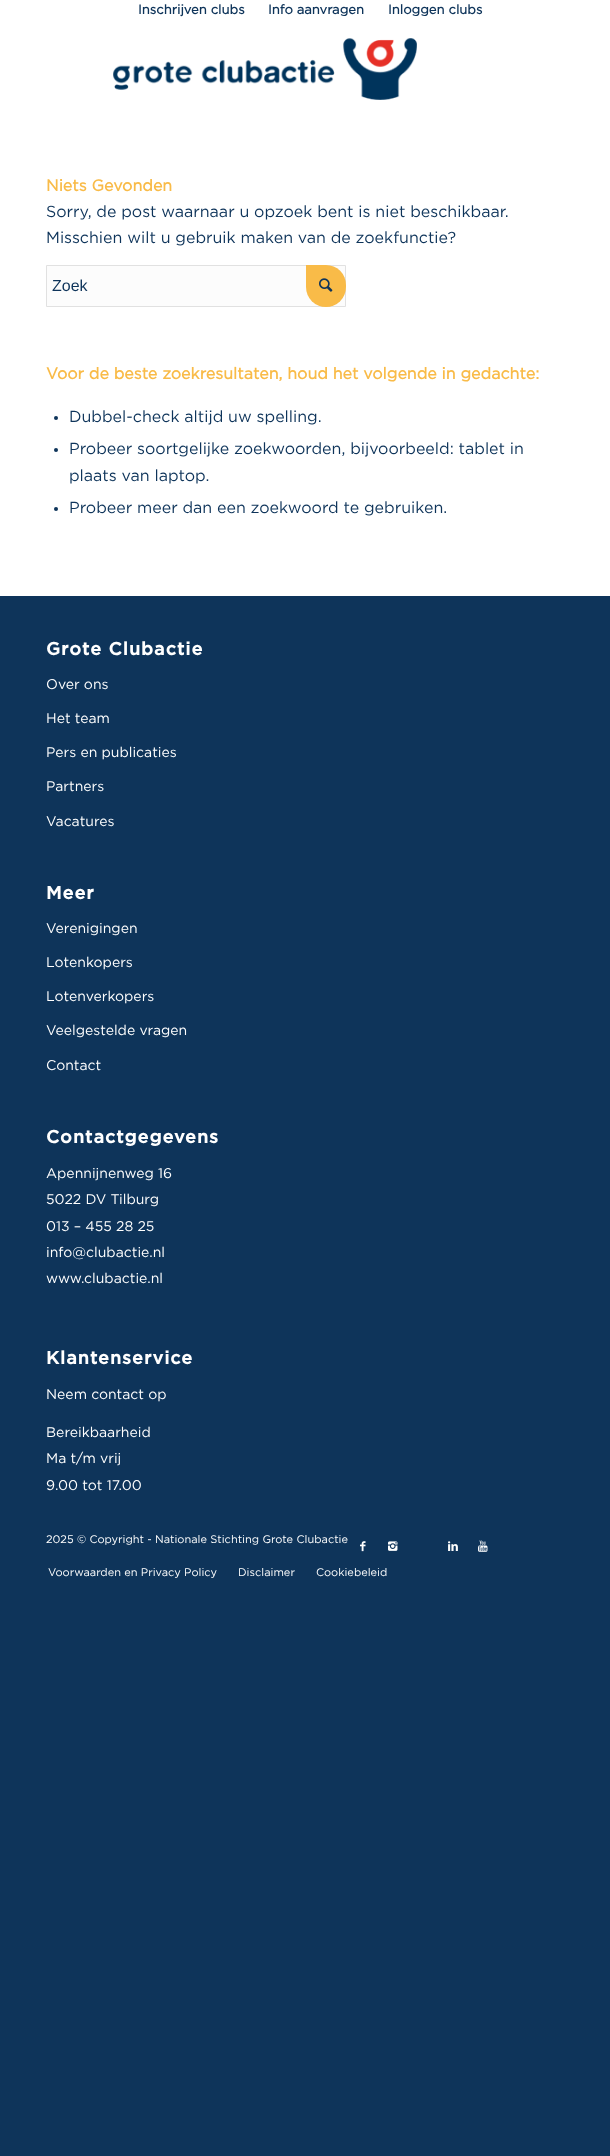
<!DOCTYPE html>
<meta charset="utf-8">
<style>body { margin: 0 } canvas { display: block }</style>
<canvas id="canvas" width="610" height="2156"></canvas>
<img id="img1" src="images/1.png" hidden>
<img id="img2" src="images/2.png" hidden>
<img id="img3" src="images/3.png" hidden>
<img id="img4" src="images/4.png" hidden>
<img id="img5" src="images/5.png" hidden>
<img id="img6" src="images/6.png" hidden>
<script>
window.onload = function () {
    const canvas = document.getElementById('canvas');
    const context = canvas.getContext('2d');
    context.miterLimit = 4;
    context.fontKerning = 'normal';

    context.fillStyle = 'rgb(14, 52, 90)';
    context.fillRect(0, 0, 610, 2156);
    context.fillStyle = 'rgb(255, 255, 255)';
    context.fillRect(0, 0, 610, 596);
    context.drawImage(document.getElementById('img1'), 113, 38, 304, 62);
    context.fillStyle = 'rgb(252, 252, 252)';
    context.beginPath();
    context.rect(46.5, 265.5, 299, 41);
    context.fill();
    context.strokeStyle = 'rgb(225, 225, 225)';
    context.stroke();
    context.fillStyle = 'rgb(249, 187, 72)';
    context.beginPath();
    context.roundRect(306, 265, 40, 42, [0, 20, 20, 20]);
    context.fill();
    context.drawImage(document.getElementById('img2'), 319, 278, 14, 14);
    context.fillStyle = 'rgb(14, 52, 90)';
    context.beginPath();
    context.arc(56, 418, 2, 0, 2 * Math.PI);
    context.fill();
    context.beginPath();
    context.arc(56, 450, 2, 0, 2 * Math.PI);
    context.fill();
    context.beginPath();
    context.arc(56, 509, 2, 0, 2 * Math.PI);
    context.fill();
    context.drawImage(document.getElementById('img3'), 360, 1541, 6, 11);
    context.drawImage(document.getElementById('img4'), 388, 1541, 10, 10);
    context.drawImage(document.getElementById('img5'), 448, 1541, 10, 10);
    context.drawImage(document.getElementById('img6'), 478, 1540, 10, 12);
    context.font = 'bold 13px Gotham';
    context.fillText('Inschrijven clubs', 138, 14);
    context.fillText('Info aanvragen', 268, 14);
    context.fillText('Inloggen clubs', 388, 14);
    context.font = 'bold 16px Gotham';
    context.fillStyle = 'rgb(249, 187, 72)';
    context.fillText('Niets Gevonden', 46, 191);
    context.font = '16px Gotham';
    context.fillStyle = 'rgb(14, 52, 90)';
    context.fillText('Sorry, de post waarnaar u opzoek bent is niet beschikbaar.', 46, 217);
    context.fillText('Misschien wilt u gebruik maken van de zoekfunctie?', 46, 243);
    context.font = '16px Liberation Sans';
    context.fillText('Zoek', 52, 291);
    context.font = 'bold 16px Gotham';
    context.fillStyle = 'rgb(249, 187, 72)';
    context.fillText('Voor de beste zoekresultaten, houd het volgende in gedachte:', 46, 379);
    context.font = '16px Gotham';
    context.fillStyle = 'rgb(14, 52, 90)';
    context.fillText('Dubbel-check altijd uw spelling.', 69, 422);
    context.fillText('Probeer soortgelijke zoekwoorden, bijvoorbeeld: tablet in', 69, 454);
    context.fillText('plaats van laptop.', 69, 481);
    context.fillText('Probeer meer dan een zoekwoord te gebruiken.', 69, 513);
    context.letterSpacing = '1px';
    context.font = 'bold 18px "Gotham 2"';
    context.fillStyle = 'rgb(255, 255, 255)';
    context.fillText('Grote Clubactie', 46, 655);
    context.letterSpacing = '0px';
    context.font = '14px Gotham';
    context.fillText('Over ons', 46, 689);
    context.fillText('Het team', 46, 723);
    context.fillText('Pers en publicaties', 46, 757);
    context.fillText('Partners', 46, 791);
    context.fillText('Vacatures', 46, 826);
    context.letterSpacing = '1px';
    context.font = 'bold 18px "Gotham 2"';
    context.fillText('Meer', 46, 899);
    context.letterSpacing = '0px';
    context.font = '14px Gotham';
    context.fillText('Verenigingen', 46, 933);
    context.fillText('Lotenkopers', 46, 967);
    context.fillText('Lotenverkopers', 46, 1001);
    context.fillText('Veelgestelde vragen', 46, 1035);
    context.fillText('Contact', 46, 1070);
    context.letterSpacing = '1px';
    context.font = 'bold 18px "Gotham 2"';
    context.fillText('Contactgegevens', 46, 1143);
    context.letterSpacing = '0px';
    context.font = '14px Gotham';
    context.fillText('Apennijnenweg 16', 46, 1178);
    context.fillText('5022 DV Tilburg', 46, 1204);
    context.fillText('013 – 455 28 25', 46, 1231);
    context.fillText('info@clubactie.nl', 46, 1257);
    context.fillText('www.clubactie.nl', 46, 1283);
    context.letterSpacing = '1px';
    context.font = 'bold 18px "Gotham 2"';
    context.fillText('Klantenservice', 46, 1364);
    context.letterSpacing = '0px';
    context.font = '14px Gotham';
    context.fillText('Neem contact op', 46, 1399);
    context.fillText('Bereikbaarheid', 46, 1437);
    context.fillText('Ma t/m vrij', 46, 1463);
    context.fillText('9.00 tot 17.00', 46, 1490);
    context.font = '11px Gotham';
    context.fillText('2025 © Copyright - Nationale Stichting Grote Clubactie', 46, 1543);
    context.fillText('Voorwaarden en Privacy Policy', 48, 1576);
    context.fillText('Disclaimer', 238, 1576);
    context.fillText('Cookiebeleid', 316, 1576);
};
</script>
